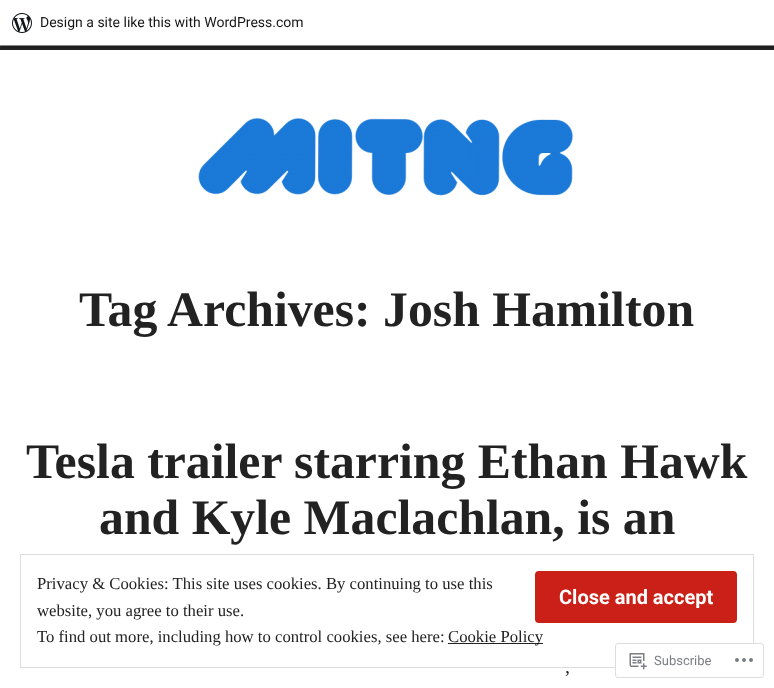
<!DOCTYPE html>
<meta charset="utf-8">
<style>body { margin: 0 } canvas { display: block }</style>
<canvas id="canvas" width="774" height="688"></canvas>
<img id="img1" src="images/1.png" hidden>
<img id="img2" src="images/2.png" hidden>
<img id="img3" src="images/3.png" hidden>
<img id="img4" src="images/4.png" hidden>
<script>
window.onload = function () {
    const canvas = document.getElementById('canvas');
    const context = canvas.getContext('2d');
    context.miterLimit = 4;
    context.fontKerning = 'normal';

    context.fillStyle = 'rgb(255, 255, 255)';
    context.fillRect(0, 0, 774, 688);
    context.fillStyle = 'rgb(34, 34, 34)';
    context.fillRect(0, 46, 774, 4);
    context.fillStyle = 'rgb(145, 145, 145)';
    context.fillRect(0, 45, 774, 1);
    context.fillStyle = 'rgba(0, 0, 0, 0.08)';
    context.beginPath();
    context.moveTo(1, 45);
    context.lineTo(1, 48);
    context.lineTo(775, 48);
    context.lineTo(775, 3);
    context.lineTo(774, 3);
    context.lineTo(774, 45);
    context.closePath();
    context.fill();
    context.drawImage(document.getElementById('img1'), 12, 13, 20, 20);
    context.drawImage(document.getElementById('img2'), 198, 118, 375, 78);
    context.strokeStyle = 'rgb(221, 221, 221)';
    context.strokeRect(20.5, 554.5, 733, 113);
    context.fillStyle = 'rgb(202, 32, 23)';
    context.beginPath();
    context.roundRect(535, 571, 202, 52, 4);
    context.fill();
    context.fillStyle = 'rgb(34, 34, 34)';
    context.fillRect(448, 643, 95, 1);
    context.fillStyle = 'rgba(255, 255, 255, 0.98)';
    context.beginPath();
    context.roundRect(615, 643, 149, 35, 3);
    context.fill();
    context.beginPath();
    context.roundRect(615.5, 643.5, 148, 34, 2.5);
    context.strokeStyle = 'rgba(220, 220, 222, 0.98)';
    context.stroke();
    context.drawImage(document.getElementById('img3'), 629, 653, 18, 17);
    context.drawImage(document.getElementById('img4'), 735, 658, 18, 4);
    context.font = '14px Roboto';
    context.fillStyle = 'rgb(23, 23, 23)';
    context.fillText('Design a site like this with WordPress.com', 40, 27);
    context.font = 'bold 49.75px Liberation Serif';
    context.fillStyle = 'rgb(34, 34, 34)';
    context.fillText('Tag Archives: Josh Hamilton', 79, 326);
    context.fillText('Tesla trailer starring Ethan Hawk', 26, 478);
    context.fillText('and Kyle Maclachlan, is an', 99, 534);
    context.font = '20px Liberation Serif';
    context.fillText(',', 565, 673);
    context.font = '16.7px Liberation Serif';
    context.fillText('Privacy & Cookies: This site uses cookies. By continuing to use this', 37, 589);
    context.font = 'bold 20px Roboto';
    context.fillStyle = 'rgb(255, 255, 255)';
    context.fillText('Close and accept', 559, 604);
    context.font = '16.7px Liberation Serif';
    context.fillStyle = 'rgb(34, 34, 34)';
    context.fillText('website, you agree to their use.', 37, 616);
    context.fillText('To find out more, including how to control cookies, see here:', 37, 642);
    context.fillText('Cookie Policy', 448, 642);
    context.font = '13px Roboto';
    context.fillStyle = 'rgb(123, 127, 133)';
    context.fillText('Subscribe', 654, 665);
};
</script>
